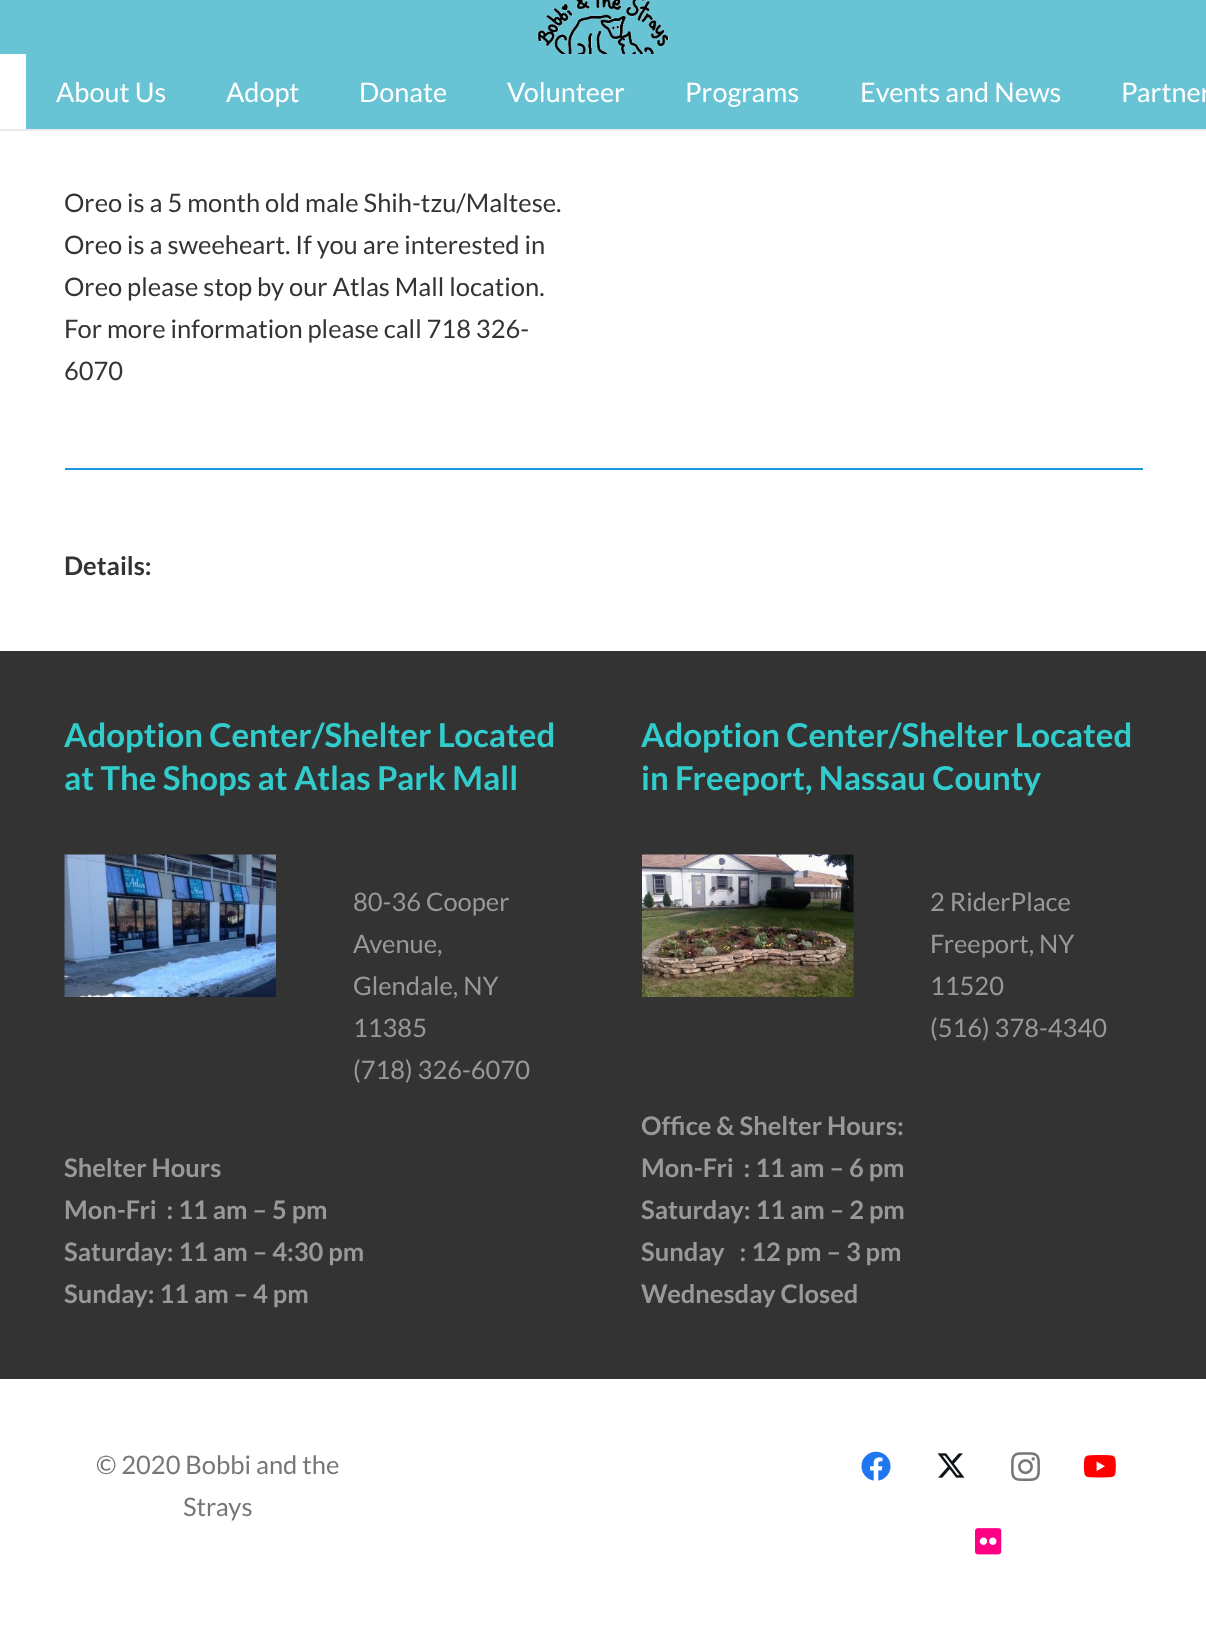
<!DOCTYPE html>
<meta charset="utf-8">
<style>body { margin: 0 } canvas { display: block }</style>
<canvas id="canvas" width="1206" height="1630"></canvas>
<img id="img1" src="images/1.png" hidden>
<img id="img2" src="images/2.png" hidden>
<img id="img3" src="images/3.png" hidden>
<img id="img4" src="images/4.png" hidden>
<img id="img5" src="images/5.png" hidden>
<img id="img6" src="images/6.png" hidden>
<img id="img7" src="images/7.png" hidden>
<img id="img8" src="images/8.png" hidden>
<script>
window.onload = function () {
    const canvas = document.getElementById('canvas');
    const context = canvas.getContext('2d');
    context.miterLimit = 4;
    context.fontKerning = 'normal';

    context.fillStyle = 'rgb(255, 255, 255)';
    context.fillRect(0, 0, 1206, 1630);
    context.fillStyle = 'rgb(104, 195, 212)';
    context.fillRect(0, 0, 1206, 54);
    context.drawImage(document.getElementById('img1'), 537, 0, 132, 54);
    context.fillStyle = 'rgb(235, 235, 235)';
    context.fillRect(0, 129, 1206, 2);
    context.fillStyle = 'rgb(104, 195, 212)';
    context.fillRect(26, 54, 1180, 75);
    context.fillStyle = 'rgb(27, 152, 224)';
    context.fillRect(65, 468, 1078, 2);
    context.fillStyle = 'rgb(51, 51, 51)';
    context.fillRect(0, 651, 1206, 728);
    context.drawImage(document.getElementById('img2'), 64, 854, 212, 143);
    context.drawImage(document.getElementById('img3'), 642, 854, 212, 143);
    context.drawImage(document.getElementById('img4'), 861, 1451, 30, 30);
    context.drawImage(document.getElementById('img5'), 937, 1453, 28, 25);
    context.drawImage(document.getElementById('img6'), 1011, 1452, 29, 30);
    context.drawImage(document.getElementById('img7'), 1083, 1455, 33, 23);
    context.drawImage(document.getElementById('img8'), 975, 1528, 27, 27);
    context.font = '27px Lato';
    context.fillStyle = 'rgb(255, 255, 255)';
    context.fillText('About Us', 56, 102);
    context.fillText('Adopt', 226, 102);
    context.fillText('Donate', 359, 102);
    context.fillText('Volunteer', 507, 102);
    context.fillText('Programs', 685, 102);
    context.fillText('Events and News', 860, 102);
    context.fillText('Partner', 1121, 102);
    context.font = '25.5px Lato';
    context.fillStyle = 'rgb(51, 51, 51)';
    context.fillText('Oreo is a 5 month old male Shih-tzu/Maltese.', 64, 212);
    context.fillText('Oreo is a sweeheart. If you are interested in', 64, 254);
    context.fillText('Oreo please stop by our Atlas Mall location.', 64, 296);
    context.fillText('For more information please call 718 326-', 64, 338);
    context.fillText('6070', 64, 380);
    context.font = 'bold 25.5px Lato';
    context.fillText('Details:', 64, 575);
    context.font = 'bold 33px Lato';
    context.fillStyle = 'rgb(51, 204, 204)';
    context.fillText('Adoption Center/Shelter Located', 64, 747);
    context.fillText('at The Shops at Atlas Park Mall', 64, 790);
    context.font = '25.5px Lato';
    context.fillStyle = 'rgb(153, 153, 153)';
    context.fillText('80-36 Cooper', 353, 911);
    context.fillText('Avenue,', 353, 953);
    context.fillText('Glendale, NY', 353, 995);
    context.fillText('11385', 353, 1037);
    context.fillText('(718) 326-6070', 353, 1079);
    context.font = 'bold 25.5px Lato';
    context.fillText('Shelter Hours', 64, 1177);
    context.fillText('Mon-Fri  : 11 am – 5 pm', 64, 1219);
    context.fillText('Saturday: 11 am – 4:30 pm', 64, 1261);
    context.fillText('Sunday: 11 am – 4 pm', 64, 1303);
    context.font = 'bold 33px Lato';
    context.fillStyle = 'rgb(51, 204, 204)';
    context.fillText('Adoption Center/Shelter Located', 641, 747);
    context.fillText('in Freeport, Nassau County', 641, 790);
    context.font = '25.5px Lato';
    context.fillStyle = 'rgb(153, 153, 153)';
    context.fillText('2 RiderPlace', 930, 911);
    context.fillText('Freeport, NY', 930, 953);
    context.fillText('11520', 930, 995);
    context.fillText('(516) 378-4340', 930, 1037);
    context.font = 'bold 25.5px Lato';
    context.fillText('Office & Shelter Hours:', 641, 1135);
    context.fillText('Mon-Fri  : 11 am – 6 pm', 641, 1177);
    context.fillText('Saturday: 11 am – 2 pm', 641, 1219);
    context.fillText('Sunday   : 12 pm – 3 pm', 641, 1261);
    context.fillText('Wednesday Closed', 641, 1303);
    context.font = '25.5px Lato';
    context.fillStyle = 'rgb(119, 119, 119)';
    context.fillText('© 2020 Bobbi and the', 96, 1474);
    context.fillText('Strays', 183, 1516);
};
</script>
